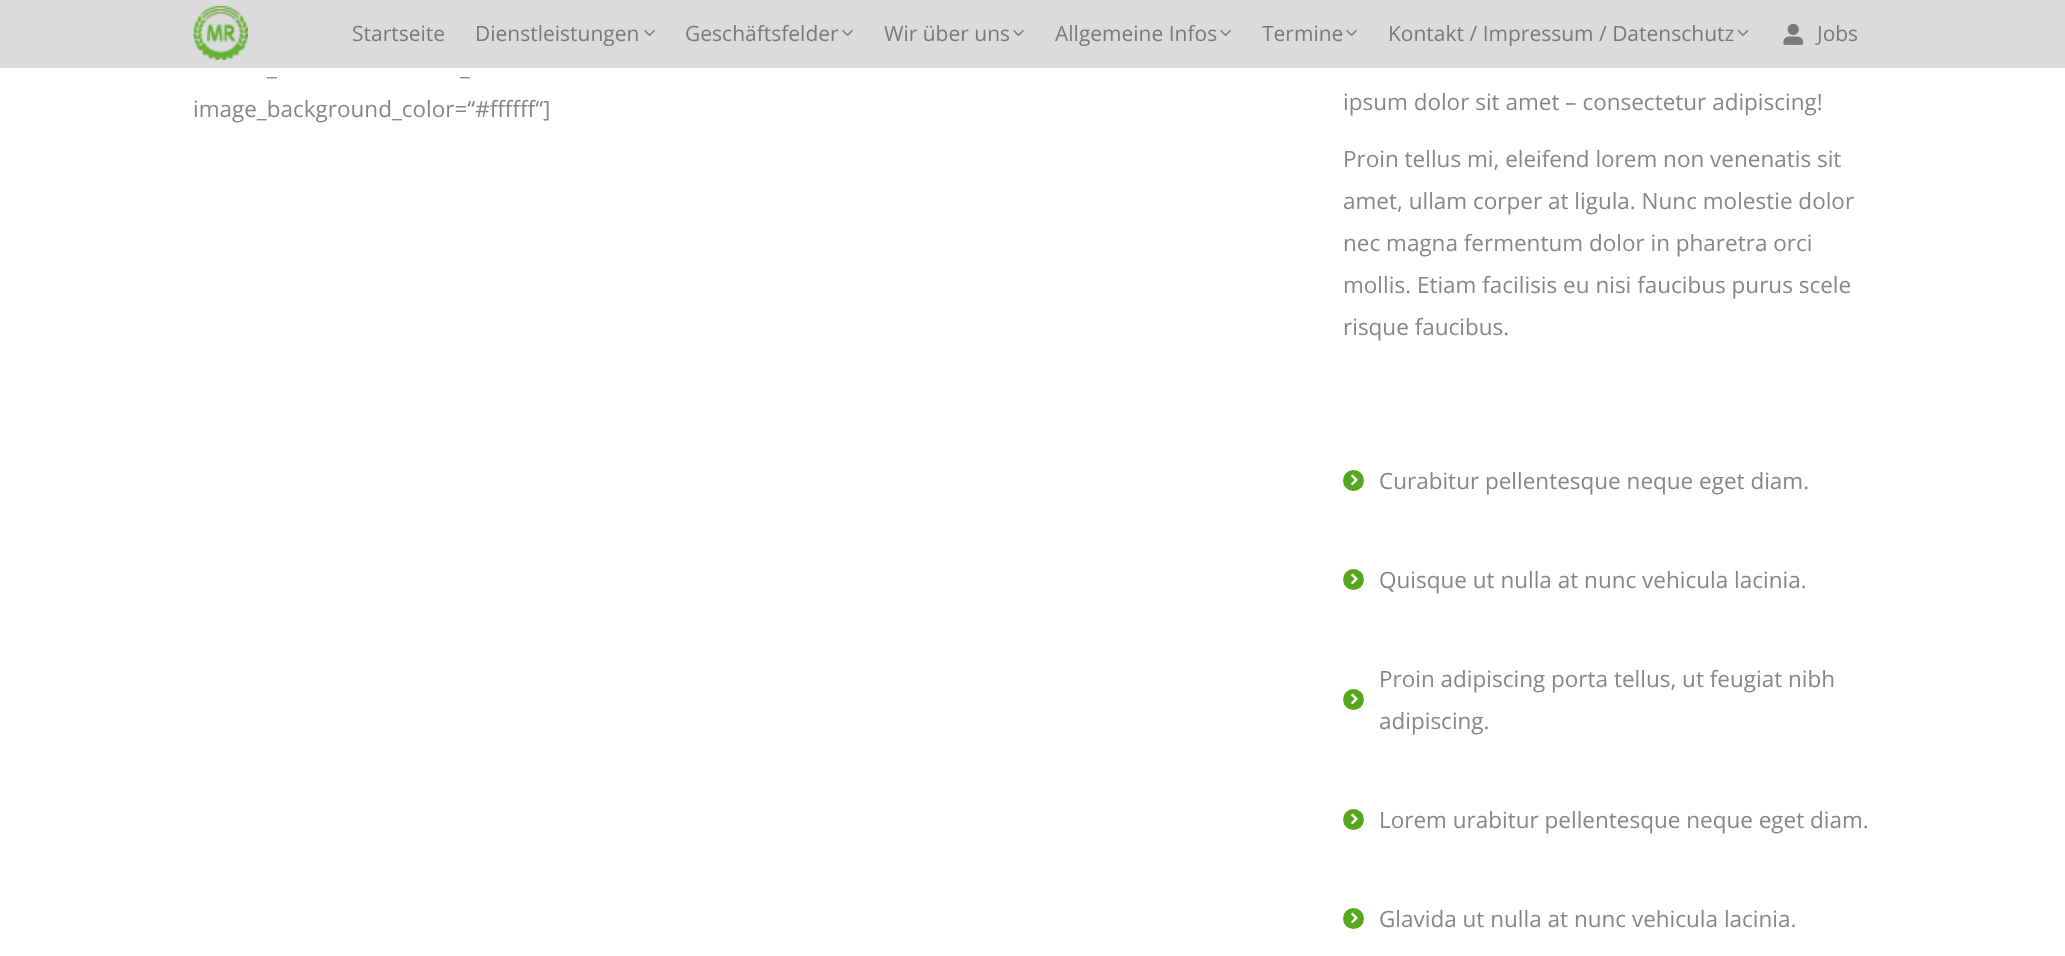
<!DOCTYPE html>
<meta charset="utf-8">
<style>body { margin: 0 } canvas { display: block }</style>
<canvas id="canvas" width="2065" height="956"></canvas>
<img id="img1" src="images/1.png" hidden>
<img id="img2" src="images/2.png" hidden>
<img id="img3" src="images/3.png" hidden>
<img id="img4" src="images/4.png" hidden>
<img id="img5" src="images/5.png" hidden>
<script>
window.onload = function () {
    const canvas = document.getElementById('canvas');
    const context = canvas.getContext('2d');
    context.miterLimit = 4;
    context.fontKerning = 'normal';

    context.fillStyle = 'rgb(255, 255, 255)';
    context.fillRect(0, 0, 2065, 956);
    context.fillStyle = 'rgb(219, 219, 219)';
    context.fillRect(0, 0, 2065, 68);
    context.drawImage(document.getElementById('img1'), 193, 6, 55, 54);
    context.drawImage(document.getElementById('img2'), 644, 30, 11, 6);
    context.drawImage(document.getElementById('img2'), 842, 30, 11, 6);
    context.drawImage(document.getElementById('img2'), 1013, 30, 11, 6);
    context.drawImage(document.getElementById('img2'), 1220, 30, 11, 6);
    context.drawImage(document.getElementById('img2'), 1346, 30, 11, 6);
    context.drawImage(document.getElementById('img3'), 1737, 30, 12, 6);
    context.drawImage(document.getElementById('img4'), 1783, 23, 21, 22);
    context.fillStyle = 'rgb(85, 168, 27)';
    context.beginPath();
    context.arc(1353.5, 480.5, 10.5, 0, 2 * Math.PI);
    context.fill();
    context.drawImage(document.getElementById('img5'), 1351, 474, 7, 12);
    context.beginPath();
    context.arc(1353.5, 579.5, 10.5, 0, 2 * Math.PI);
    context.fill();
    context.drawImage(document.getElementById('img5'), 1351, 573, 7, 12);
    context.beginPath();
    context.arc(1353.5, 699.5, 10.5, 0, 2 * Math.PI);
    context.fill();
    context.drawImage(document.getElementById('img5'), 1351, 693, 7, 12);
    context.beginPath();
    context.arc(1353.5, 819.5, 10.5, 0, 2 * Math.PI);
    context.fill();
    context.drawImage(document.getElementById('img5'), 1351, 813, 7, 12);
    context.beginPath();
    context.arc(1353.5, 918.5, 10.5, 0, 2 * Math.PI);
    context.fill();
    context.drawImage(document.getElementById('img5'), 1351, 912, 7, 12);
    context.font = '21px Open Sans';
    context.fillStyle = 'rgb(122, 122, 122)';
    context.fillText('Startseite', 352, 41);
    context.fillText('Dienstleistungen', 475, 41);
    context.fillText('Geschäftsfelder', 685, 41);
    context.fillText('Wir über uns', 884, 41);
    context.fillText('Allgemeine Infos', 1055, 41);
    context.fillText('Termine', 1262, 41);
    context.fillText('Kontakt / Impressum / Datenschutz', 1388, 41);
    context.fillText('Jobs', 1817, 41);
    context.font = '22.5px Open Sans';
    context.fillStyle = 'rgb(135, 135, 135)';
    context.fillText('_', 267, 75);
    context.fillText('_', 460, 75);
    context.fillText('image_background_color=“#ffffff“]', 193, 117);
    context.fillText('ipsum dolor sit amet – consectetur adipiscing!', 1343, 110);
    context.fillText('Proin tellus mi, eleifend lorem non venenatis sit', 1343, 167);
    context.fillText('amet, ullam corper at ligula. Nunc molestie dolor', 1343, 209);
    context.fillText('nec magna fermentum dolor in pharetra orci', 1343, 251);
    context.fillText('mollis. Etiam facilisis eu nisi faucibus purus scele', 1343, 293);
    context.fillText('risque faucibus.', 1343, 335);
    context.fillText('Curabitur pellentesque neque eget diam.', 1379, 489);
    context.fillText('Quisque ut nulla at nunc vehicula lacinia.', 1379, 588);
    context.fillText('Proin adipiscing porta tellus, ut feugiat nibh', 1379, 687);
    context.fillText('adipiscing.', 1379, 729);
    context.fillText('Lorem urabitur pellentesque neque eget diam.', 1379, 828);
    context.fillText('Glavida ut nulla at nunc vehicula lacinia.', 1379, 927);
};
</script>
